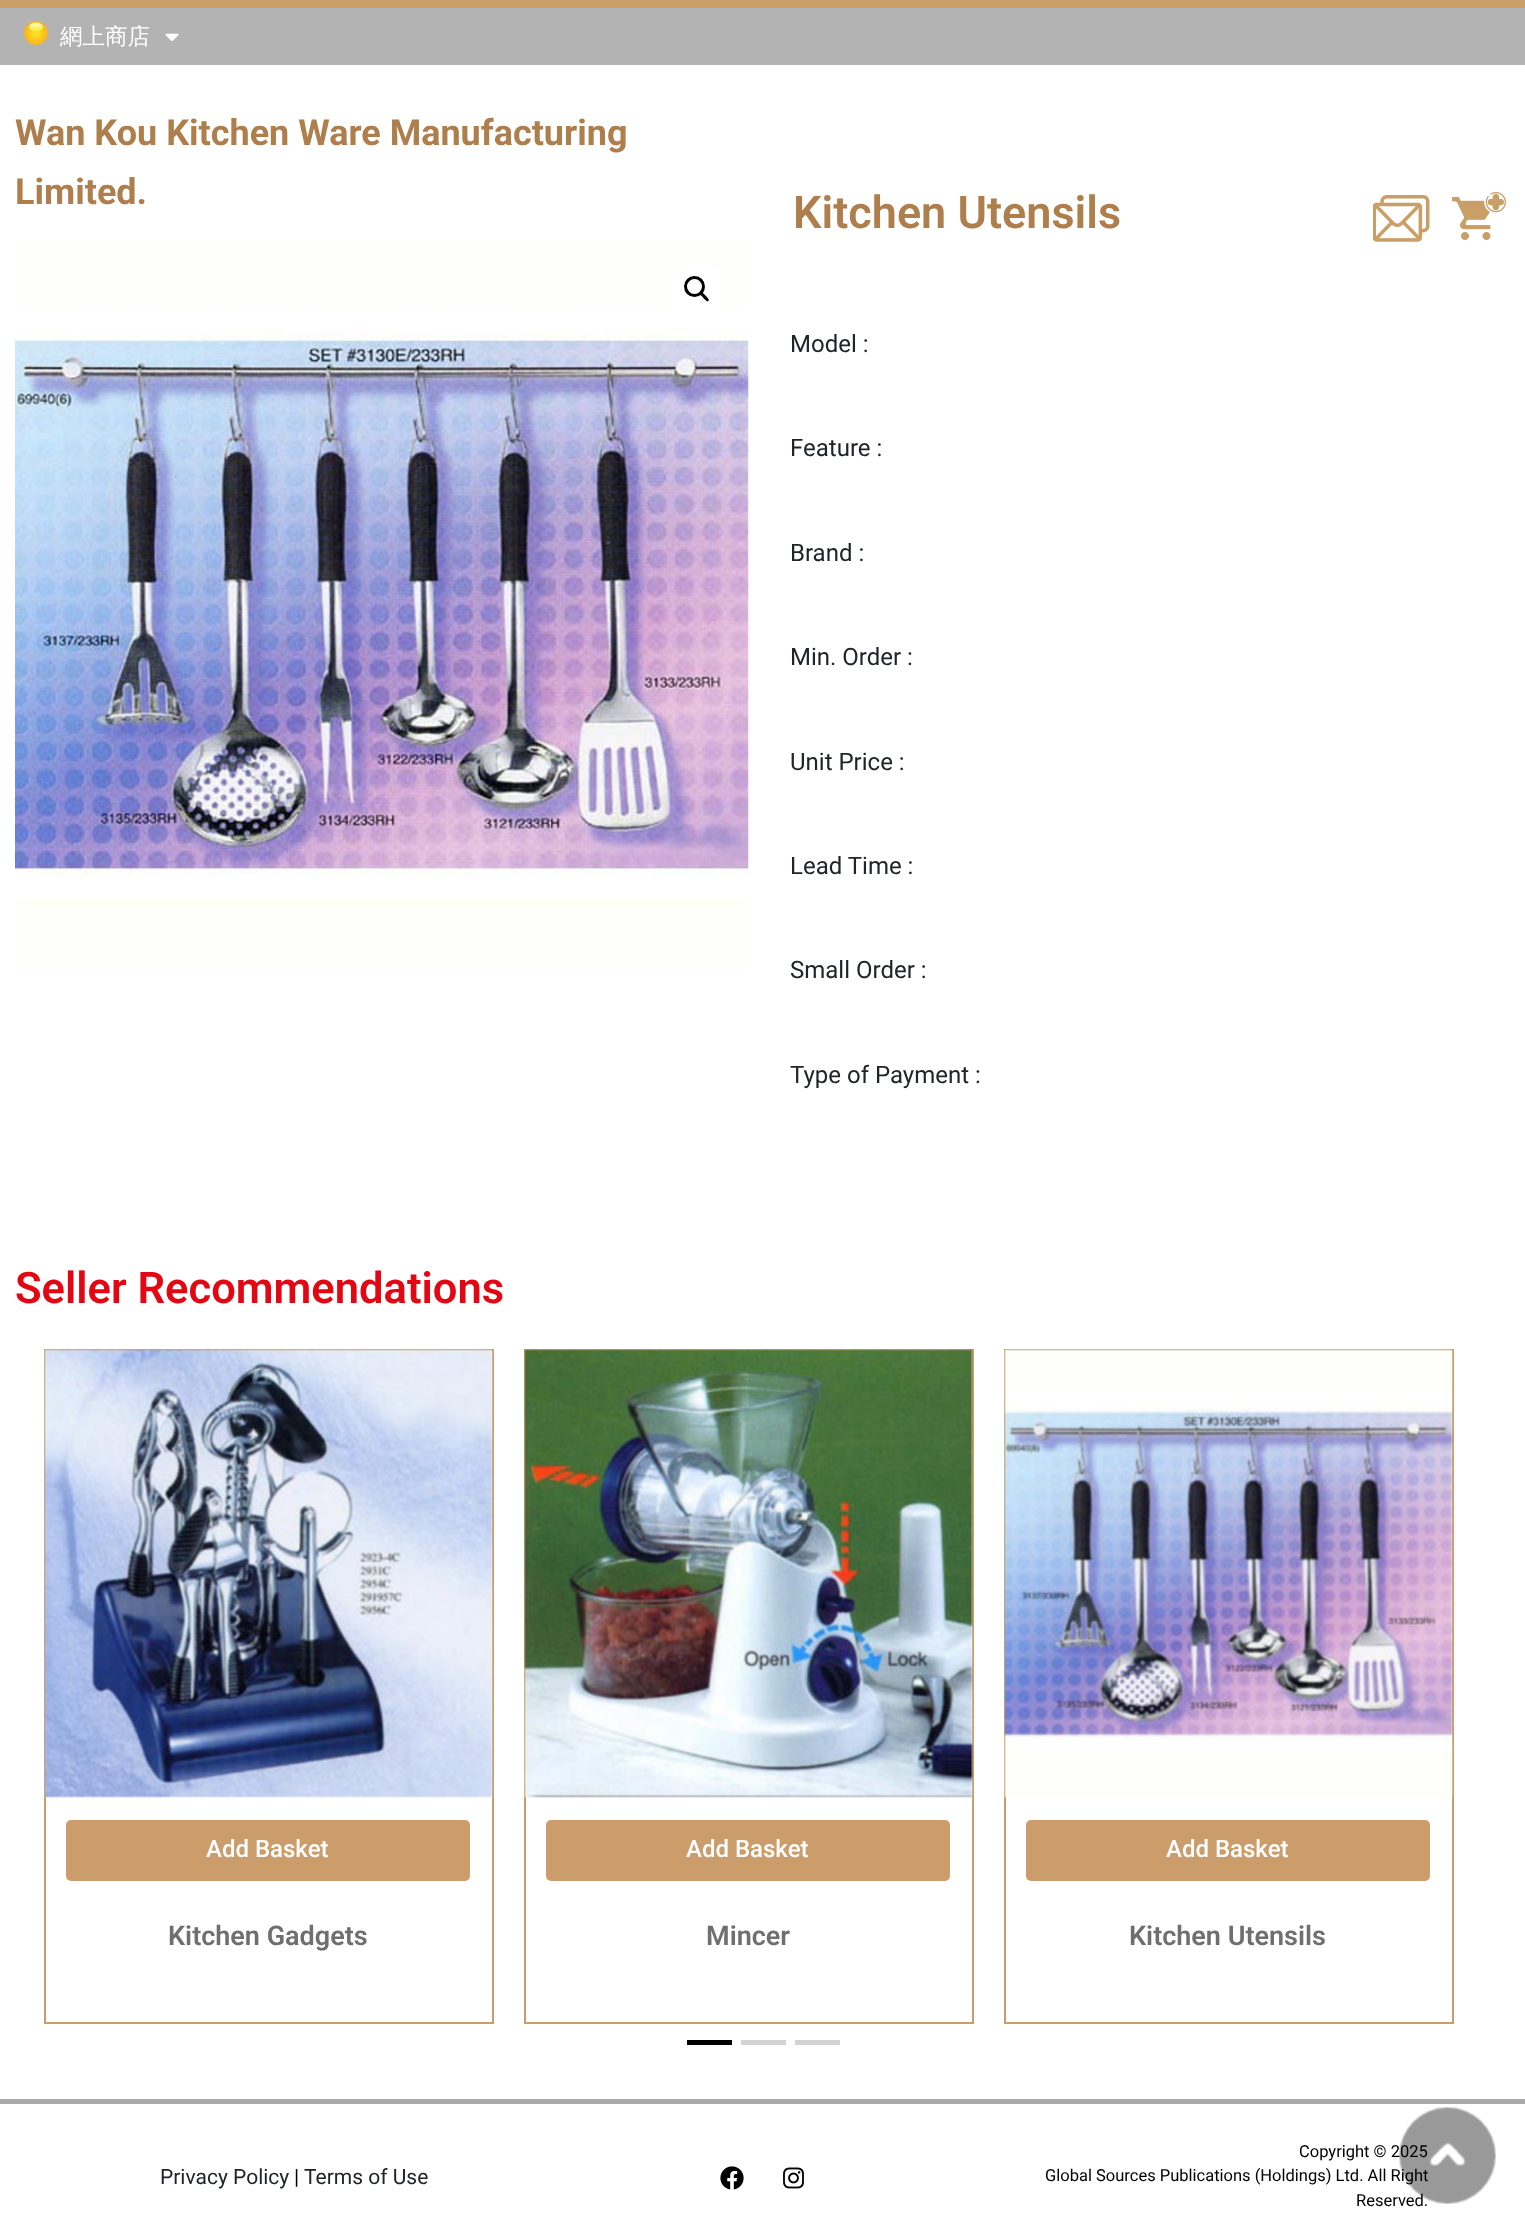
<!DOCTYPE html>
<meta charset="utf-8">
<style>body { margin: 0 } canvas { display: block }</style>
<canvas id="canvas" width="1525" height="2233"></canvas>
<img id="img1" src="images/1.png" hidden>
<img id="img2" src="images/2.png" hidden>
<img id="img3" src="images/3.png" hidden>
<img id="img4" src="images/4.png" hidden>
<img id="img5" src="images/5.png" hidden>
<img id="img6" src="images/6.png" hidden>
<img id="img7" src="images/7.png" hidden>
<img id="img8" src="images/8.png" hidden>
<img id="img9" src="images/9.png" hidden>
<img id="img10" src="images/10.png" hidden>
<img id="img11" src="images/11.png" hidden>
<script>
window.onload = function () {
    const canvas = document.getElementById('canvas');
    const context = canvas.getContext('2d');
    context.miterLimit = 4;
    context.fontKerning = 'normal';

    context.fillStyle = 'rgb(255, 255, 255)';
    context.fillRect(0, 0, 1525, 2233);
    context.fillStyle = 'rgb(202, 158, 103)';
    context.fillRect(0, 0, 1525, 8);
    context.fillStyle = 'rgb(179, 179, 179)';
    context.fillRect(0, 8, 1525, 57);
    context.drawImage(document.getElementById('img1'), 24, 21, 24, 24);
    context.drawImage(document.getElementById('img2'), 165, 33, 14, 8);
    context.drawImage(document.getElementById('img3'), 15, 239, 734, 731);
    context.fillStyle = 'rgb(255, 255, 255)';
    context.beginPath();
    context.arc(698, 290, 27, 0, 2 * Math.PI);
    context.fill();
    context.beginPath();
    context.arc(694.5, 286.5, 9, 0, 2 * Math.PI);
    context.strokeStyle = 'rgb(0, 0, 0)';
    context.lineWidth = 3;
    context.stroke();
    context.fillStyle = 'rgb(0, 0, 0)';
    context.beginPath();
    context.moveTo(700, 292.5);
    context.bezierCurveTo(701.5, 290.5, 704.5, 294.5, 705.5, 295.5);
    context.bezierCurveTo(706, 296.5, 710, 299, 708.5, 301);
    context.bezierCurveTo(707, 302.5, 704, 298.5, 703, 297.5);
    context.bezierCurveTo(702.5, 296.5, 698.5, 294, 700, 292.5);
    context.closePath();
    context.fill();
    context.drawImage(document.getElementById('img4'), 1373, 195, 57, 47);
    context.drawImage(document.getElementById('img5'), 1452, 192, 54, 48);
    context.strokeStyle = 'rgb(203, 157, 106)';
    context.lineWidth = 2;
    context.strokeRect(45, 1350, 448, 673);
    context.drawImage(document.getElementById('img6'), 44, 1349, 449, 449);
    context.fillStyle = 'rgb(203, 157, 106)';
    context.beginPath();
    context.roundRect(66, 1820, 404, 61, 5);
    context.fill();
    context.strokeRect(525, 1350, 448, 673);
    context.drawImage(document.getElementById('img7'), 524, 1349, 449, 449);
    context.beginPath();
    context.roundRect(546, 1820, 404, 61, 5);
    context.fill();
    context.strokeRect(1005, 1350, 448, 673);
    context.drawImage(document.getElementById('img8'), 1004, 1349, 449, 449);
    context.beginPath();
    context.roundRect(1026, 1820, 404, 61, 5);
    context.fill();
    context.fillStyle = 'rgb(0, 0, 0)';
    context.fillRect(687, 2040, 45, 5);
    context.fillStyle = 'rgb(211, 211, 211)';
    context.fillRect(741, 2040, 45, 5);
    context.fillRect(795, 2040, 45, 5);
    context.fillStyle = 'rgb(170, 168, 168)';
    context.fillRect(0, 2099, 1525, 5);
    context.drawImage(document.getElementById('img9'), 720, 2166, 24, 24);
    context.drawImage(document.getElementById('img10'), 783, 2167, 21, 22);
    context.font = '500 22.5px WenQuanYi Zen Hei';
    context.fillStyle = 'rgb(255, 255, 255)';
    context.fillText('網上商店', 60, 44);
    context.font = 'bold 36px Roboto';
    context.fillStyle = 'rgb(174, 127, 76)';
    context.fillText('Wan Kou Kitchen Ware Manufacturing', 15, 145);
    context.fillText('Limited.', 15, 204);
    context.font = '600 45px Roboto';
    context.fillText('Kitchen Utensils', 793, 228);
    context.font = '24px Roboto';
    context.fillStyle = 'rgb(33, 37, 41)';
    context.fillText('Model :', 790, 352);
    context.fillText('Feature :', 790, 456);
    context.fillText('Brand :', 790, 561);
    context.fillText('Min. Order :', 790, 665);
    context.fillText('Unit Price :', 790, 770);
    context.fillText('Lead Time :', 790, 874);
    context.fillText('Small Order :', 790, 978);
    context.fillText('Type of Payment :', 790, 1083);
    context.font = '600 43.5px Roboto';
    context.fillStyle = 'rgb(227, 6, 19)';
    context.fillText('Seller Recommendations', 15, 1303);
    context.font = '500 24px Roboto';
    context.fillStyle = 'rgb(255, 255, 255)';
    context.fillText('Add Basket', 206, 1857);
    context.font = '600 27px Roboto';
    context.fillStyle = 'rgb(112, 111, 111)';
    context.fillText('Kitchen Gadgets', 168, 1945);
    context.font = '500 24px Roboto';
    context.fillStyle = 'rgb(255, 255, 255)';
    context.fillText('Add Basket', 686, 1857);
    context.font = '600 27px Roboto';
    context.fillStyle = 'rgb(112, 111, 111)';
    context.fillText('Mincer', 706, 1945);
    context.font = '500 24px Roboto';
    context.fillStyle = 'rgb(255, 255, 255)';
    context.fillText('Add Basket', 1166, 1857);
    context.font = '600 27px Roboto';
    context.fillStyle = 'rgb(112, 111, 111)';
    context.fillText('Kitchen Utensils', 1129, 1945);
    context.font = '21px Roboto';
    context.fillStyle = 'rgb(33, 37, 41)';
    context.fillText('Privacy Policy', 160, 2184);
    context.fillStyle = 'rgb(0, 0, 0)';
    context.fillText('|', 294, 2184);
    context.fillStyle = 'rgb(33, 37, 41)';
    context.fillText('Terms of Use', 304, 2184);
    context.font = '16.5px Roboto';
    context.fillStyle = 'rgb(0, 0, 0)';
    context.fillText('Copyright © 2025', 1299, 2157);
    context.fillText('Global Sources Publications (Holdings) Ltd. All Right', 1045, 2181);
    context.fillText('Reserved.', 1356, 2206);
    context.drawImage(document.getElementById('img11'), 1399, 2107, 97, 97);
};
</script>
